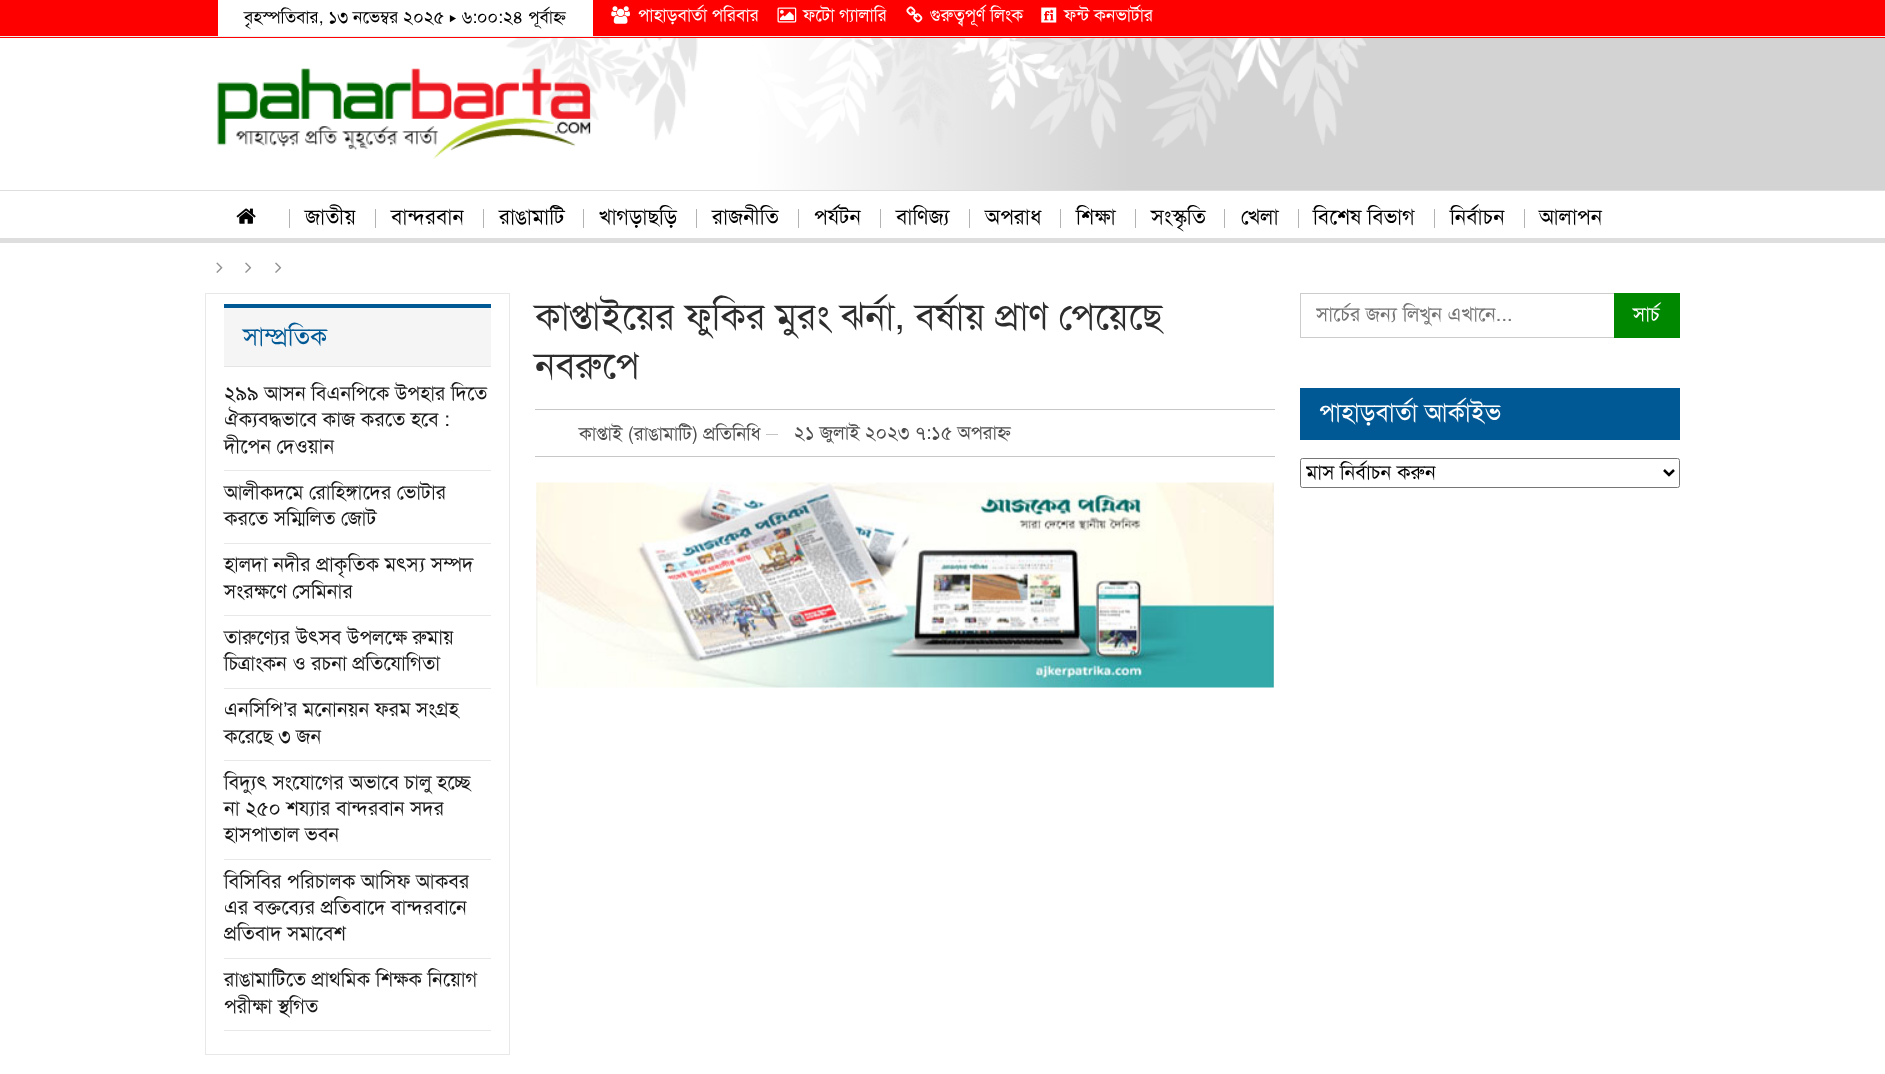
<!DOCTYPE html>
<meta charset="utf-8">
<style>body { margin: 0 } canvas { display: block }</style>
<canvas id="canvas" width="1885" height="1074"></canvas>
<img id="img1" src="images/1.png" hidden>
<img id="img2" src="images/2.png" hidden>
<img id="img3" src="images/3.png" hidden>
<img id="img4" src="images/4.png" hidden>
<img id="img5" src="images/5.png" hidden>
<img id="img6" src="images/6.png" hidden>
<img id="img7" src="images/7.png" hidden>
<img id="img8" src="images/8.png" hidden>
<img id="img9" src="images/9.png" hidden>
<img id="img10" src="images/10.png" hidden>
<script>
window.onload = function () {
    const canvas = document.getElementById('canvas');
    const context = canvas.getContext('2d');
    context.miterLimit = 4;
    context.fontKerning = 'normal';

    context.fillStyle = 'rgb(255, 255, 255)';
    context.fillRect(0, 0, 1885, 1074);
    context.drawImage(document.getElementById('img1'), 0, 38, 1885, 152);
    context.fillStyle = 'rgb(255, 0, 0)';
    context.fillRect(0, 0, 1885, 38);
    context.fillStyle = 'rgb(239, 239, 239)';
    context.fillRect(0, 36, 1885, 1);
    context.fillStyle = 'rgb(255, 255, 255)';
    context.fillRect(218, 0, 375, 36);
    context.drawImage(document.getElementById('img2'), 611, 6, 19, 18);
    context.drawImage(document.getElementById('img3'), 777, 7, 20, 16);
    context.drawImage(document.getElementById('img4'), 906, 6, 17, 17);
    context.drawImage(document.getElementById('img5'), 1041, 7, 16, 16);
    context.drawImage(document.getElementById('img6'), 217, 68, 374, 91);
    context.fillStyle = 'rgb(222, 222, 222)';
    context.fillRect(0, 190, 1885, 1);
    context.fillRect(0, 238, 1885, 5);
    context.drawImage(document.getElementById('img7'), 236, 208, 20, 16);
    context.fillStyle = 'rgb(179, 179, 179)';
    context.fillRect(289, 209, 1, 19);
    context.fillRect(375, 209, 1, 19);
    context.fillRect(483, 209, 1, 19);
    context.fillRect(583, 209, 1, 19);
    context.fillRect(696, 209, 1, 19);
    context.fillRect(798, 209, 1, 19);
    context.fillRect(880, 209, 1, 19);
    context.fillRect(969, 209, 1, 19);
    context.fillRect(1060, 209, 1, 19);
    context.fillRect(1135, 209, 1, 19);
    context.fillRect(1224, 209, 1, 19);
    context.fillRect(1298, 209, 1, 19);
    context.fillRect(1434, 209, 1, 19);
    context.fillRect(1524, 209, 1, 19);
    context.drawImage(document.getElementById('img8'), 216, 262, 7, 11);
    context.drawImage(document.getElementById('img9'), 245, 262, 7, 11);
    context.drawImage(document.getElementById('img9'), 275, 262, 7, 11);
    context.strokeStyle = 'rgb(232, 232, 232)';
    context.strokeRect(205.5, 293.5, 304, 761);
    context.fillStyle = 'rgb(245, 245, 245)';
    context.fillRect(224, 308, 267, 58);
    context.fillStyle = 'rgb(0, 89, 149)';
    context.fillRect(224, 304, 267, 4);
    context.fillStyle = 'rgb(229, 229, 229)';
    context.fillRect(224, 366, 267, 1);
    context.fillStyle = 'rgb(232, 232, 232)';
    context.fillRect(224, 470, 267, 1);
    context.fillRect(224, 543, 267, 1);
    context.fillRect(224, 615, 267, 1);
    context.fillRect(224, 688, 267, 1);
    context.fillRect(224, 760, 267, 1);
    context.fillRect(224, 859, 267, 1);
    context.fillRect(224, 958, 267, 1);
    context.fillRect(224, 1030, 267, 1);
    context.fillStyle = 'rgb(199, 199, 199)';
    context.fillRect(535, 409, 740, 1);
    context.fillRect(535, 456, 740, 1);
    context.fillStyle = 'rgb(196, 196, 196)';
    context.fillRect(766, 434, 12, 1);
    context.drawImage(document.getElementById('img10'), 536, 482, 738, 206);
    context.strokeStyle = 'rgb(204, 204, 204)';
    context.strokeRect(1300.5, 293.5, 379, 44);
    context.fillStyle = 'rgb(0, 136, 0)';
    context.fillRect(1614, 293, 66, 45);
    context.fillStyle = 'rgb(0, 89, 149)';
    context.fillRect(1300, 388, 380, 52);
    context.beginPath();
    context.roundRect(1300.5, 458.5, 379, 29, 2);
    context.strokeStyle = 'rgb(118, 118, 118)';
    context.stroke();
    context.beginPath();
    context.moveTo(1664, 470);
    context.lineTo(1669, 475);
    context.lineTo(1674, 470);
    context.strokeStyle = 'rgb(0, 0, 0)';
    context.lineWidth = 2.5;
    context.stroke();
    context.font = '17.5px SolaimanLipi';
    context.fillStyle = 'rgb(0, 0, 0)';
    context.fillText('বৃহস্পতিবার, ১৩ নভেম্বর ২০২৫', 244, 23);
    context.font = '17.5px FreeSans';
    context.fillText('▸', 449, 23);
    context.font = '17.5px SolaimanLipi';
    context.fillText('৬:০০:২৪ পূর্বাহ্ন', 462, 23);
    context.fillStyle = 'rgb(255, 255, 255)';
    context.fillText('পাহাড়বার্তা পরিবার', 638, 21);
    context.fillText('ফটো গ্যালারি', 803, 21);
    context.fillText('গুরুত্বপূর্ণ লিংক', 930, 21);
    context.fillText('ফন্ট কনভার্টার', 1064, 21);
    context.font = '21.25px SolaimanLipi';
    context.fillStyle = 'rgb(0, 0, 0)';
    context.fillText('জাতীয়', 305, 224);
    context.fillText('বান্দরবান', 391, 224);
    context.fillText('রাঙামাটি', 499, 224);
    context.fillText('খাগড়াছড়ি', 599, 224);
    context.fillText('রাজনীতি', 712, 224);
    context.fillText('পর্যটন', 814, 224);
    context.fillText('বাণিজ্য', 896, 224);
    context.fillText('অপরাধ', 985, 224);
    context.fillText('শিক্ষা', 1076, 224);
    context.fillText('সংস্কৃতি', 1151, 224);
    context.fillText('খেলা', 1241, 224);
    context.fillText('বিশেষ বিভাগ', 1313, 224);
    context.fillText('নির্বাচন', 1450, 224);
    context.fillText('আলাপন', 1539, 224);
    context.font = '25px SolaimanLipi';
    context.fillStyle = 'rgb(0, 89, 149)';
    context.fillText('সাম্প্রতিক', 243, 345);
    context.font = '20px SolaimanLipi';
    context.fillStyle = 'rgb(24, 24, 24)';
    context.fillText('২৯৯ আসন বিএনপিকে উপহার দিতে', 224, 400);
    context.fillText('ঐক্যবদ্ধভাবে কাজ করতে হবে :', 224, 426);
    context.fillText('দীপেন দেওয়ান', 224, 453);
    context.fillText('আলীকদমে রোহিঙ্গাদের ভোটার', 224, 499);
    context.fillText('করতে সম্মিলিত জোট', 224, 525);
    context.fillText('হালদা নদীর প্রাকৃতিক মৎস্য সম্পদ', 224, 571);
    context.fillText('সংরক্ষণে সেমিনার', 224, 598);
    context.fillText('তারুণ্যের উৎসব উপলক্ষে রুমায়', 224, 644);
    context.fillText('চিত্রাংকন ও রচনা প্রতিযোগিতা', 224, 670);
    context.fillText('এনসিপি', 224, 716);
    context.font = '20px Liberation Sans';
    context.fillText('’', 283, 716);
    context.font = '20px SolaimanLipi';
    context.fillText('র মনোনয়ন ফরম সংগ্রহ', 287, 716);
    context.fillText('করেছে ৩ জন', 224, 743);
    context.fillText('বিদ্যুৎ সংযোগের অভাবে চালু হচ্ছে', 224, 789);
    context.fillText('না ২৫০ শয্যার বান্দরবান সদর', 224, 815);
    context.fillText('হাসপাতাল ভবন', 224, 841);
    context.fillText('বিসিবির পরিচালক আসিফ আকবর', 224, 888);
    context.fillText('এর বক্তব্যের প্রতিবাদে বান্দরবানে', 224, 914);
    context.fillText('প্রতিবাদ সমাবেশ', 224, 940);
    context.fillText('রাঙামাটিতে প্রাথমিক শিক্ষক নিয়োগ', 224, 986);
    context.fillText('পরীক্ষা স্থগিত', 224, 1013);
    context.font = '37.5px SolaimanLipi';
    context.fillStyle = 'rgb(45, 45, 45)';
    context.fillText('কাপ্তাইয়ের ফুকির মুরং ঝর্না, বর্ষায় প্রাণ পেয়েছে', 535, 329);
    context.fillText('নবরুপে', 535, 378);
    context.font = '18.75px SolaimanLipi';
    context.fillStyle = 'rgb(77, 77, 77)';
    context.fillText('কাপ্তাই (রাঙামাটি) প্রতিনিধি', 579, 440);
    context.fillText('২১ জুলাই ২০২৩ ৭:১৫ অপরাহ্ন', 794, 439);
    context.save();
    context.beginPath();
    context.rect(1316, 303, 282, 26);
    context.clip();
    context.font = '20px SolaimanLipi';
    context.fillStyle = 'rgb(117, 117, 117)';
    context.fillText('সার্চের জন্য লিখুন এখানে...', 1316, 321);
    context.restore();
    context.font = '20px SolaimanLipi';
    context.fillStyle = 'rgb(255, 255, 255)';
    context.fillText('সার্চ', 1633, 321);
    context.font = '25px SolaimanLipi';
    context.fillText('পাহাড়বার্তা আর্কাইভ', 1319, 421);
    context.save();
    context.beginPath();
    context.rect(1306, 459, 353, 27);
    context.clip();
    context.font = '20px SolaimanLipi';
    context.fillStyle = 'rgb(0, 0, 0)';
    context.fillText('মাস নির্বাচন করুন', 1306, 479);
    context.restore();
};
</script>
